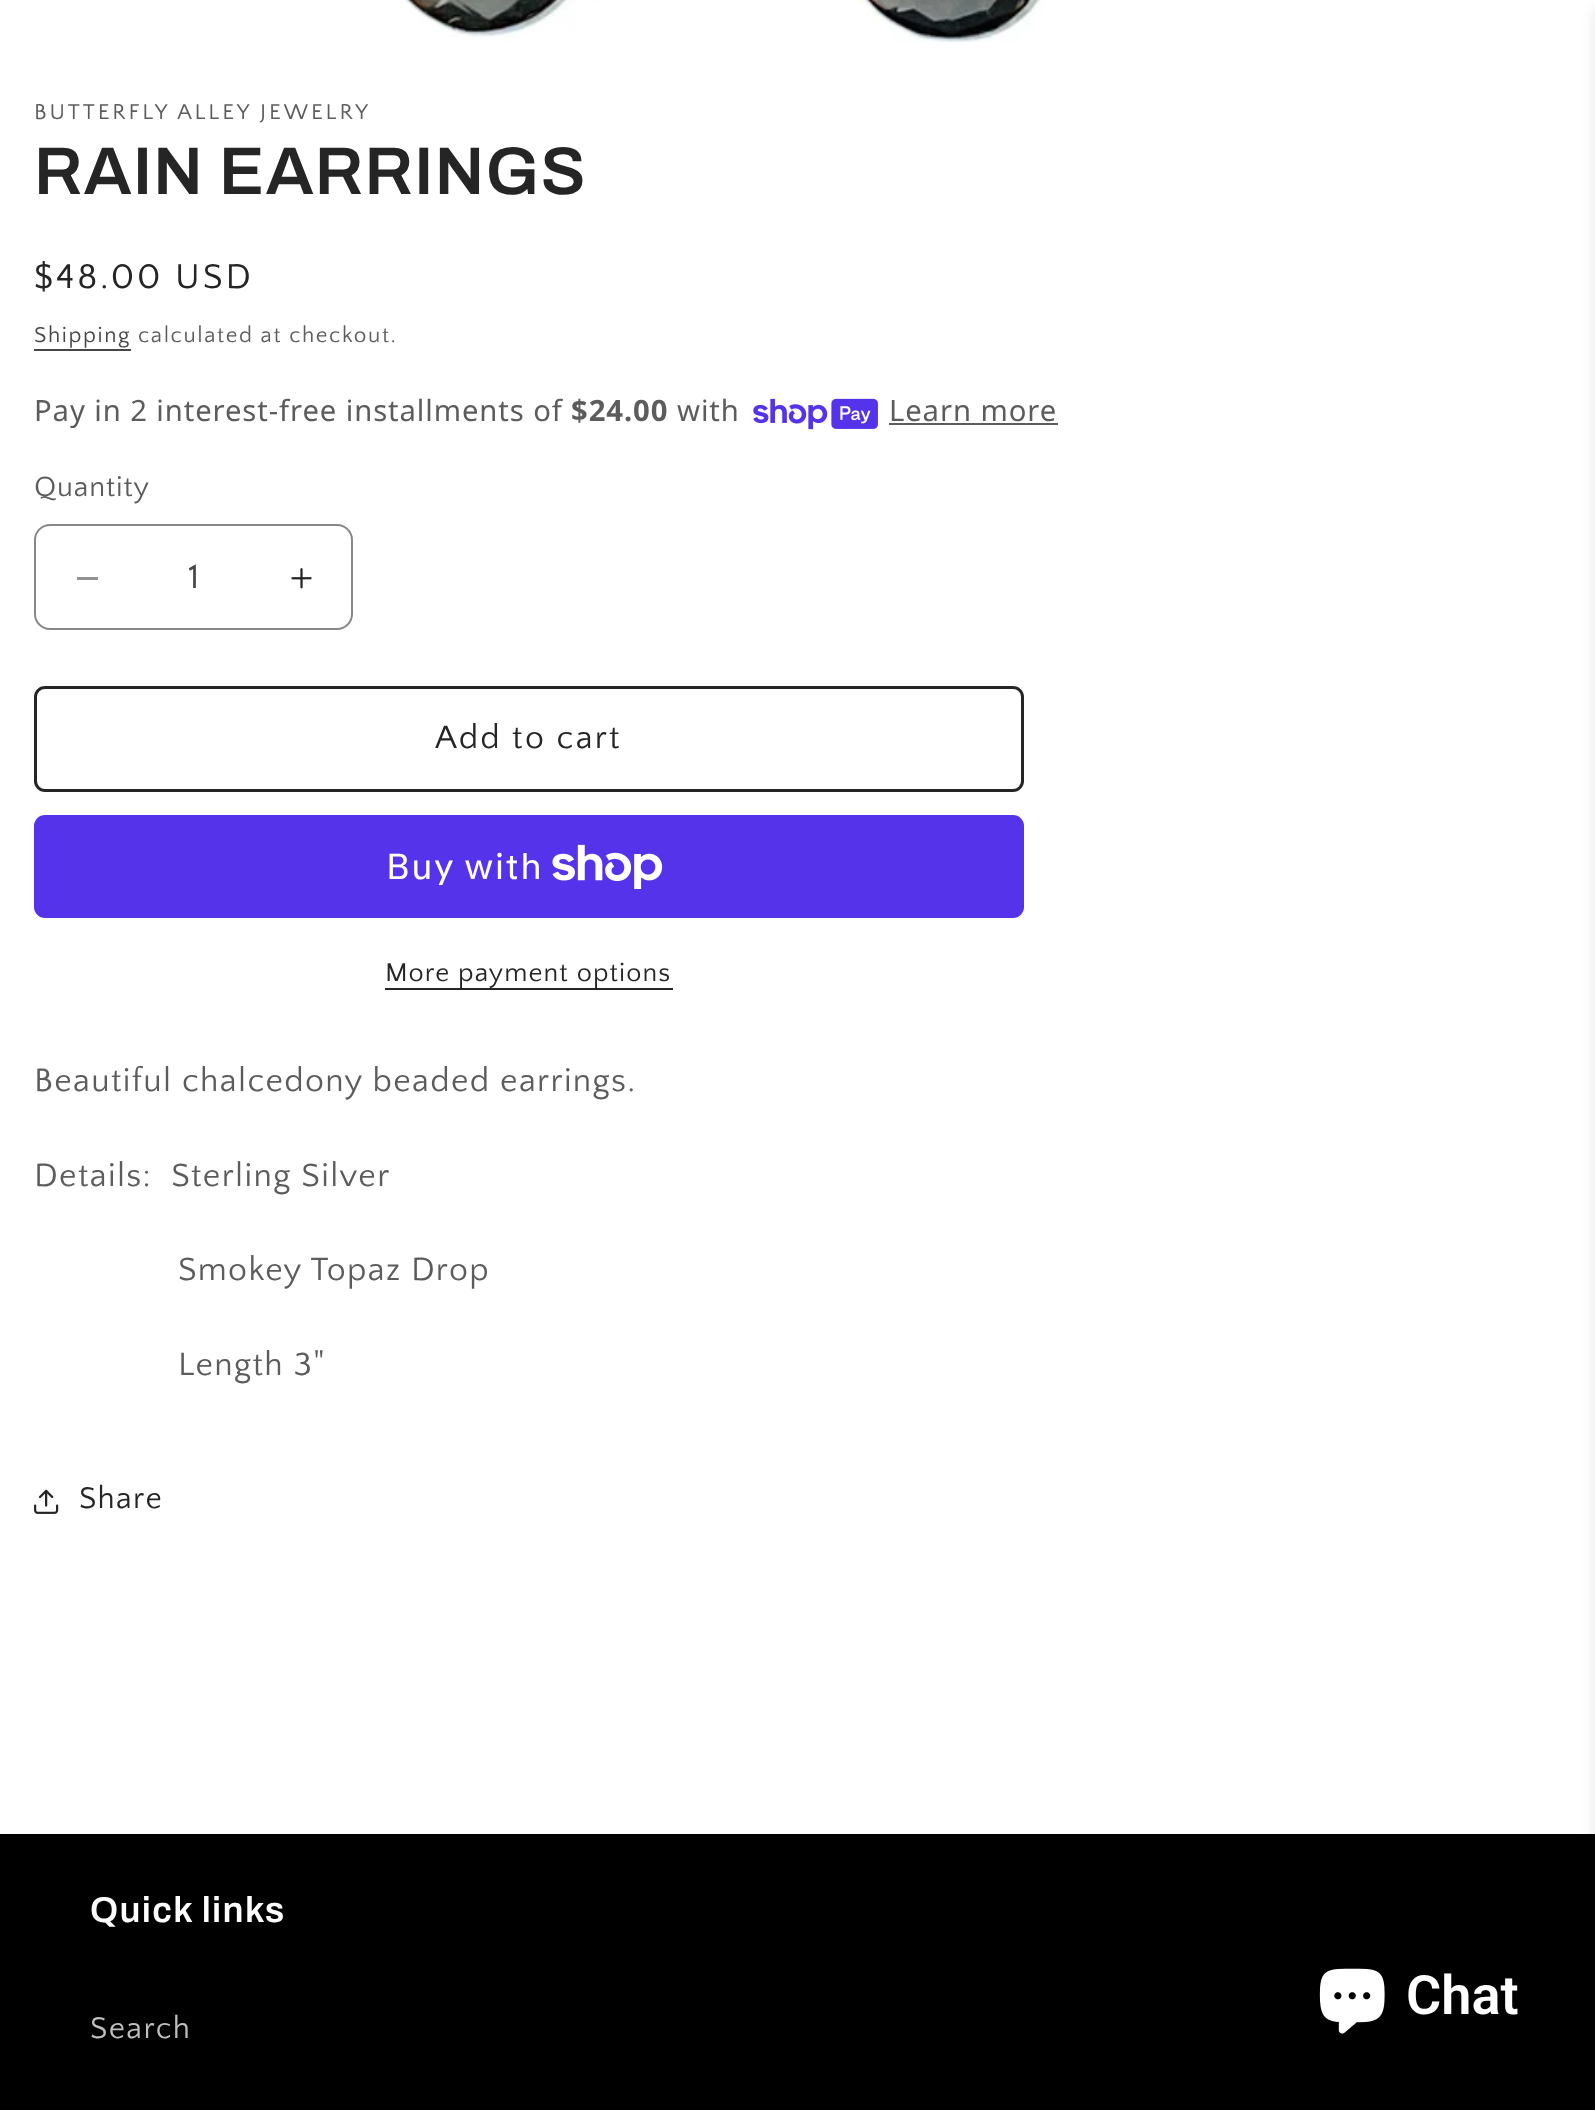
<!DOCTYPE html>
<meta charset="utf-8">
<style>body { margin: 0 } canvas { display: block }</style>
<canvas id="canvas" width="1595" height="2110"></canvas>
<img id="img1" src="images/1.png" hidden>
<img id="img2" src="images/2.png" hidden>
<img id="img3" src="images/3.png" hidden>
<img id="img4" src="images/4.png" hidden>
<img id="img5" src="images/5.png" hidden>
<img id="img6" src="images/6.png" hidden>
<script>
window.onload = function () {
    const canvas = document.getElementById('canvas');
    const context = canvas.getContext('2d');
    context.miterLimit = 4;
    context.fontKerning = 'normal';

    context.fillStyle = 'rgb(255, 255, 255)';
    context.fillRect(0, 0, 1595, 2110);
    context.drawImage(document.getElementById('img1'), 397, 0, 646, 43);
    context.fillStyle = 'rgb(70, 70, 70)';
    context.fillRect(34, 349, 97, 2);
    context.drawImage(document.getElementById('img2'), 753, 398, 125, 32);
    context.fillStyle = 'rgb(92, 92, 92)';
    context.fillRect(889, 423, 169, 2);
    context.fillStyle = 'rgb(146, 146, 146)';
    context.fillRect(77, 577, 21, 3);
    context.drawImage(document.getElementById('img3'), 291, 568, 21, 21);
    context.beginPath();
    context.roundRect(35, 525, 317, 104, 15);
    context.strokeStyle = 'rgb(135, 135, 135)';
    context.lineWidth = 2;
    context.stroke();
    context.beginPath();
    context.roundRect(35.5, 687.5, 987, 103, 9.5);
    context.strokeStyle = 'rgb(37, 37, 37)';
    context.lineWidth = 3;
    context.stroke();
    context.fillStyle = 'rgb(84, 51, 235)';
    context.beginPath();
    context.roundRect(34, 815, 990, 103, 11);
    context.fill();
    context.drawImage(document.getElementById('img4'), 552, 844, 111, 45);
    context.fillStyle = 'rgb(37, 37, 37)';
    context.fillRect(385, 988, 288, 2);
    context.drawImage(document.getElementById('img5'), 34, 1489, 25, 25);
    context.fillStyle = 'rgb(0, 0, 0)';
    context.fillRect(0, 1834, 1595, 276);
    context.fillStyle = 'rgba(0, 0, 0, 0.1)';
    context.filter = 'blur(7px)';
    context.beginPath();
    context.rect(1595, 9, 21, 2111);
    context.fill();
    context.filter = 'none';
    context.drawImage(document.getElementById('img6'), 1319, 1968, 66, 66);
    context.letterSpacing = '2.9px';
    context.font = '22.5px Quattrocento Sans';
    context.fillStyle = 'rgb(92, 92, 92)';
    context.fillText('BUTTERFLY ALLEY JEWELRY', 34, 119);
    context.letterSpacing = '1.35px';
    context.font = '600 67.5px Archivo';
    context.fillStyle = 'rgb(37, 37, 37)';
    context.fillText('RAIN EARRINGS', 34, 194);
    context.letterSpacing = '2.9px';
    context.font = '36px Quattrocento Sans';
    context.fillText('$48.00 USD', 34, 288);
    context.letterSpacing = '1.6px';
    context.font = '22.5px Quattrocento Sans';
    context.fillStyle = 'rgb(70, 70, 70)';
    context.fillText('Shipping', 34, 342);
    context.fillStyle = 'rgb(92, 92, 92)';
    context.fillText('calculated at checkout.', 138, 342);
    context.letterSpacing = '0.9px';
    context.font = '29.25px Noto Sans';
    context.fillText('Pay in 2 interest-free installments of', 34, 421);
    context.font = 'bold 29.25px Noto Sans';
    context.fillText('$24.00', 571, 421);
    context.font = '29.25px Noto Sans';
    context.fillText('with', 677, 421);
    context.fillText('Learn more', 889, 421);
    context.font = '29.25px Quattrocento Sans';
    context.fillText('Quantity', 34, 496);
    context.letterSpacing = '0px';
    context.font = '36px Quattrocento Sans';
    context.fillStyle = 'rgb(70, 70, 70)';
    context.fillText('1', 188, 588);
    context.letterSpacing = '2.25px';
    context.font = '33.75px Quattrocento Sans';
    context.fillStyle = 'rgb(37, 37, 37)';
    context.fillText('Add to cart', 435, 748);
    context.letterSpacing = '1.35px';
    context.font = '36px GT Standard';
    context.fillStyle = 'rgb(255, 255, 255)';
    context.fillText('Buy with', 386, 879);
    context.letterSpacing = '1.1px';
    context.font = '27px Quattrocento Sans';
    context.fillStyle = 'rgb(37, 37, 37)';
    context.fillText('More payment options', 385, 981);
    context.letterSpacing = '1.35px';
    context.font = '33.75px Quattrocento Sans';
    context.fillStyle = 'rgb(92, 92, 92)';
    context.fillText('Beautiful chalcedony beaded earrings.', 34, 1091);
    context.fillText('Details:  Sterling Silver', 34, 1186);
    context.fillText('Smokey Topaz Drop', 178, 1280);
    context.fillText('Length 3"', 178, 1375);
    context.font = '31.5px Quattrocento Sans';
    context.fillStyle = 'rgb(37, 37, 37)';
    context.fillText('Share', 79, 1508);
    context.font = '600 36px Archivo';
    context.fillStyle = 'rgb(255, 255, 255)';
    context.fillText('Quick links', 90, 1922);
    context.font = '31.5px Quattrocento Sans';
    context.fillStyle = 'rgb(191, 191, 191)';
    context.fillText('Search', 90, 2038);
    context.letterSpacing = '0px';
    context.font = '600 54px Roboto';
    context.fillStyle = 'rgb(255, 255, 255)';
    context.fillText('Chat', 1406, 2014);
};
</script>
